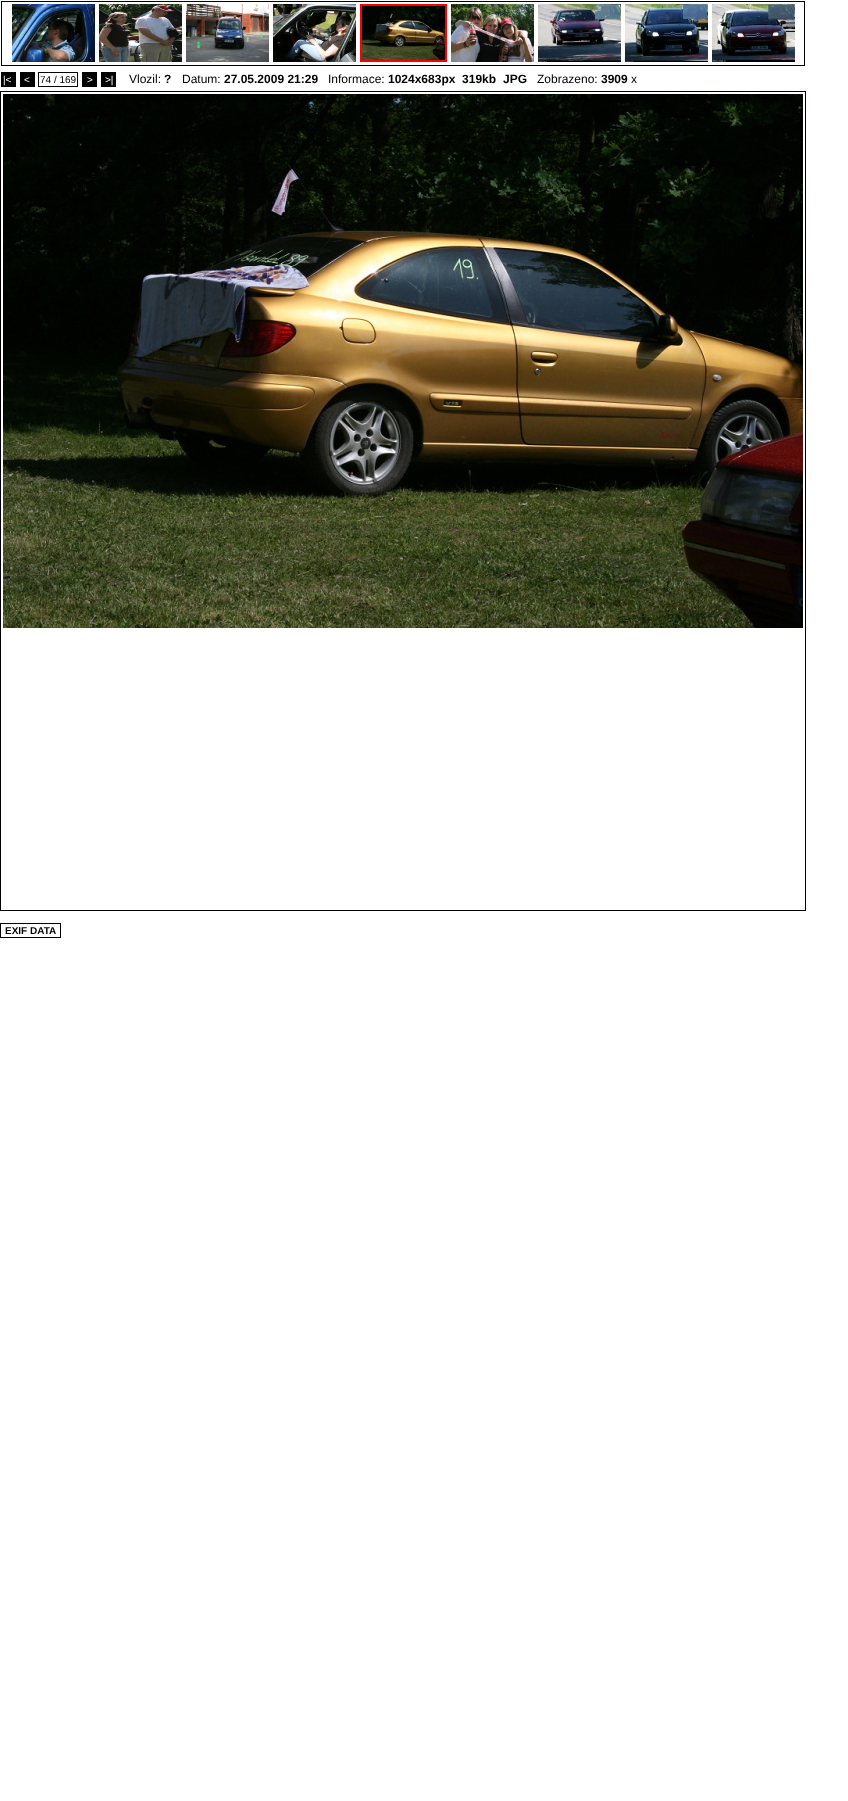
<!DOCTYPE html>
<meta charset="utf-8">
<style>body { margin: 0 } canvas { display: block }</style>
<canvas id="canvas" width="848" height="1801"></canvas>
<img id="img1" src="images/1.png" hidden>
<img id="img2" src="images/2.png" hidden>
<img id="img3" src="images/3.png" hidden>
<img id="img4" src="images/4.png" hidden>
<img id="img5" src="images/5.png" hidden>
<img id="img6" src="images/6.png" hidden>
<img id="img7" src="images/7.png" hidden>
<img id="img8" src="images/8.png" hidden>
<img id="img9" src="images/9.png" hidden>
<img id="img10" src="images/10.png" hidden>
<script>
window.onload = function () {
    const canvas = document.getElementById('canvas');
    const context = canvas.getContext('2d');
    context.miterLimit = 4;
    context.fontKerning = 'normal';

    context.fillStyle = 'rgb(255, 255, 255)';
    context.fillRect(0, 0, 848, 1801);
    context.strokeStyle = 'rgb(0, 0, 0)';
    context.strokeRect(1.5, 1.5, 803, 64);
    context.drawImage(document.getElementById('img1'), 12, 4, 83, 58);
    context.drawImage(document.getElementById('img2'), 99, 4, 83, 58);
    context.drawImage(document.getElementById('img3'), 186, 4, 83, 58);
    context.drawImage(document.getElementById('img4'), 273, 4, 83, 58);
    context.strokeStyle = 'rgb(255, 0, 0)';
    context.lineWidth = 2;
    context.strokeRect(361, 5, 85, 56);
    context.drawImage(document.getElementById('img5'), 451, 4, 83, 58);
    context.drawImage(document.getElementById('img6'), 538, 4, 83, 58);
    context.drawImage(document.getElementById('img7'), 625, 4, 83, 58);
    context.drawImage(document.getElementById('img8'), 712, 4, 83, 58);
    context.drawImage(document.getElementById('img9'), 362, 6, 83, 54);
    context.fillStyle = 'rgb(0, 0, 0)';
    context.fillRect(1, 72, 15, 15);
    context.fillRect(20, 72, 15, 15);
    context.strokeStyle = 'rgb(0, 0, 0)';
    context.lineWidth = 1;
    context.strokeRect(38.5, 72.5, 39, 14);
    context.fillRect(82, 72, 15, 15);
    context.fillRect(101, 72, 15, 15);
    context.strokeRect(0.5, 91.5, 805, 819);
    context.drawImage(document.getElementById('img10'), 3, 94, 800, 534);
    context.fillRect(0, 923, 61, 1);
    context.fillRect(0, 937, 56, 1);
    context.fillRect(0, 923, 1, 15);
    context.fillRect(60, 923, 1, 15);
    context.fillRect(56, 937, 5, 1);
    context.font = '10px Liberation Sans';
    context.fillStyle = 'rgb(255, 255, 255)';
    context.fillText('|<', 3, 83);
    context.fillText('<', 24, 83);
    context.fillStyle = 'rgb(0, 0, 0)';
    context.fillText('74 / 169', 40, 83);
    context.fillStyle = 'rgb(255, 255, 255)';
    context.fillText('>', 87, 83);
    context.fillText('>|', 105, 83);
    context.font = '12px Liberation Sans';
    context.fillStyle = 'rgb(0, 0, 0)';
    context.fillText('Vlozil:', 129, 83);
    context.font = 'bold 12px Liberation Sans';
    context.fillText('?', 164, 83);
    context.font = '12px Liberation Sans';
    context.fillText('Datum:', 182, 83);
    context.font = 'bold 12px Liberation Sans';
    context.fillText('27.05.2009 21:29', 224, 83);
    context.font = '12px Liberation Sans';
    context.fillText('Informace:', 328, 83);
    context.font = 'bold 12px Liberation Sans';
    context.fillText('1024x683px  319kb', 388, 83);
    context.fillText('JPG', 503, 83);
    context.font = '12px Liberation Sans';
    context.fillText('Zobrazeno:', 537, 83);
    context.font = 'bold 12px Liberation Sans';
    context.fillText('3909', 601, 83);
    context.font = '12px Liberation Sans';
    context.fillText('x', 631, 83);
    context.font = 'bold 10px Liberation Sans';
    context.fillText('EXIF DATA', 5, 934);
};
</script>
